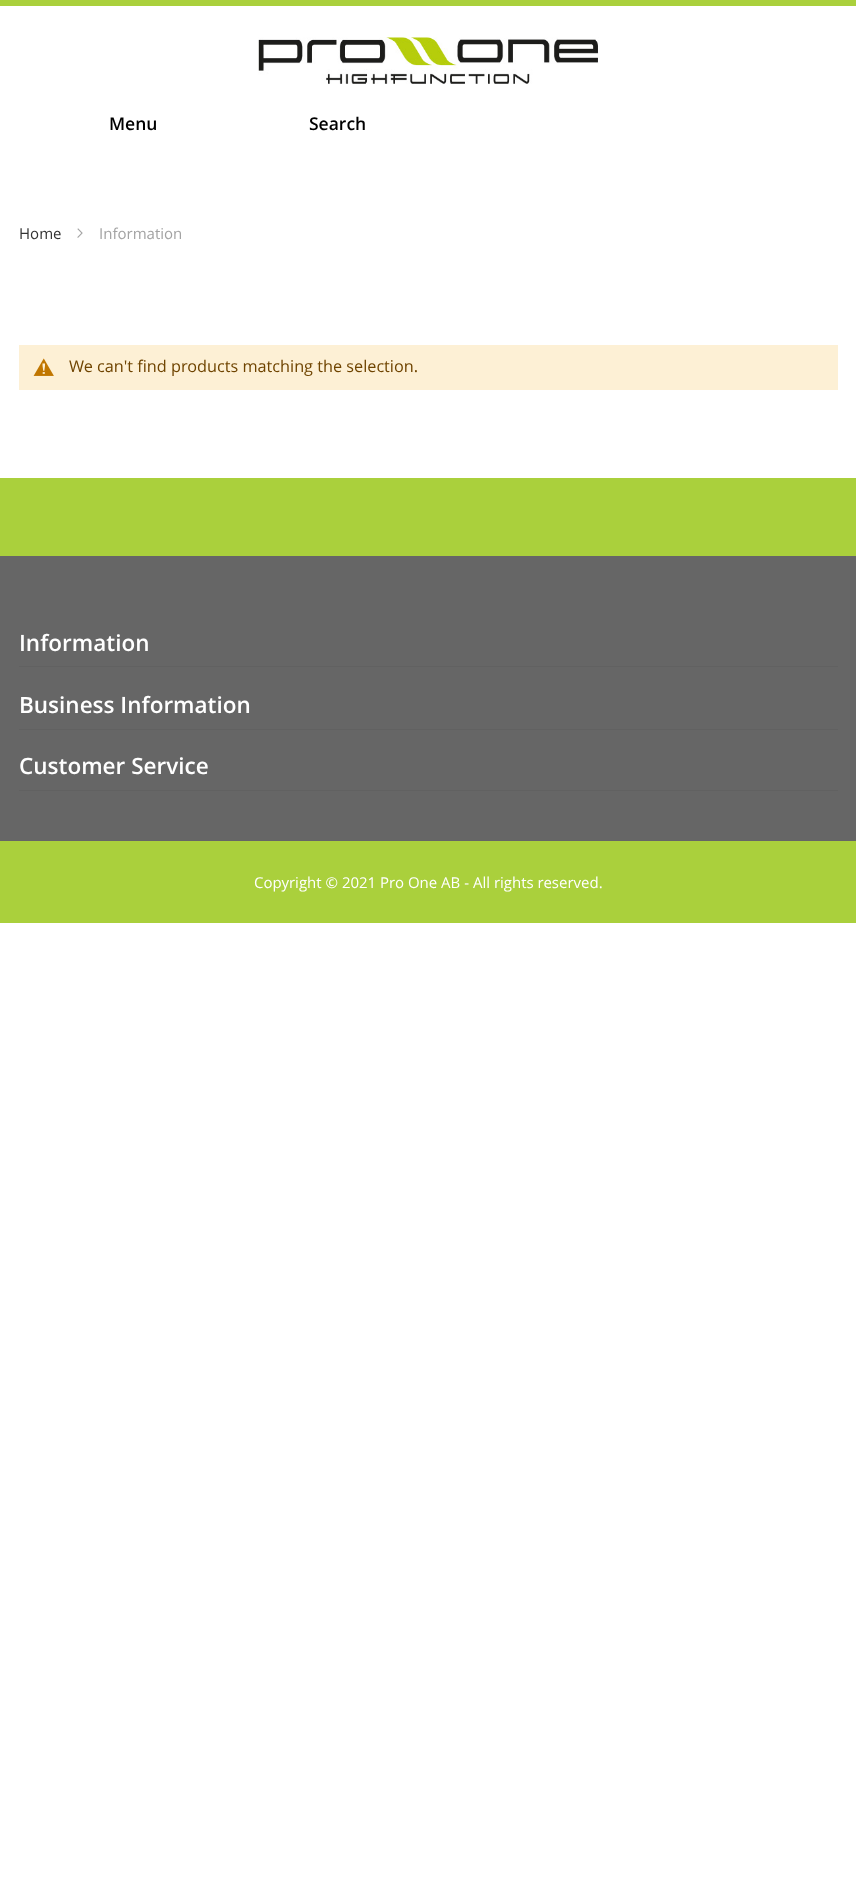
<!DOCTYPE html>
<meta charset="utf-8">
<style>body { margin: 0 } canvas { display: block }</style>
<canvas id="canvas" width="856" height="1904"></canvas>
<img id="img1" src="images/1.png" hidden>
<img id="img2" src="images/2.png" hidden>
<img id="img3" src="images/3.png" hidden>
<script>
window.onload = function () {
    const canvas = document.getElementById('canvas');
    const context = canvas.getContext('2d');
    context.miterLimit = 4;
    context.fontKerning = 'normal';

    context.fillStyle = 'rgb(255, 255, 255)';
    context.fillRect(0, 0, 856, 1904);
    context.fillStyle = 'rgb(170, 208, 60)';
    context.fillRect(0, 0, 856, 6);
    context.drawImage(document.getElementById('img1'), 258, 37, 341, 47);
    context.drawImage(document.getElementById('img2'), 77, 228, 6, 10);
    context.fillStyle = 'rgb(253, 240, 213)';
    context.fillRect(19, 345, 819, 45);
    context.drawImage(document.getElementById('img3'), 33, 358, 21, 18);
    context.fillStyle = 'rgb(102, 102, 102)';
    context.fillRect(0, 556, 856, 285);
    context.fillStyle = 'rgb(170, 208, 60)';
    context.fillRect(0, 478, 856, 78);
    context.fillStyle = 'rgb(97, 97, 97)';
    context.fillRect(19, 666, 819, 1);
    context.fillRect(19, 729, 819, 1);
    context.fillRect(19, 790, 819, 1);
    context.fillStyle = 'rgb(170, 208, 60)';
    context.fillRect(0, 841, 856, 82);
    context.font = '600 17.5px Open Sans';
    context.fillStyle = 'rgb(0, 0, 0)';
    context.fillText('Menu', 109, 130);
    context.fillText('Search', 309, 130);
    context.font = '15px Open Sans';
    context.fillStyle = 'rgb(51, 51, 51)';
    context.fillText('Home', 19, 239);
    context.fillStyle = 'rgb(163, 163, 163)';
    context.fillText('Information', 99, 239);
    context.font = '16.25px Open Sans';
    context.fillStyle = 'rgb(111, 68, 0)';
    context.fillText('We can\'t find products matching the selection.', 69, 372);
    context.font = '600 22.5px Open Sans';
    context.fillStyle = 'rgb(255, 255, 255)';
    context.fillText('Information', 19, 651);
    context.fillText('Business Information', 19, 713);
    context.fillText('Customer Service', 19, 774);
    context.font = '15px Open Sans';
    context.fillText('Copyright © 2021 Pro One AB - All rights reserved.', 254, 888);
};
</script>
